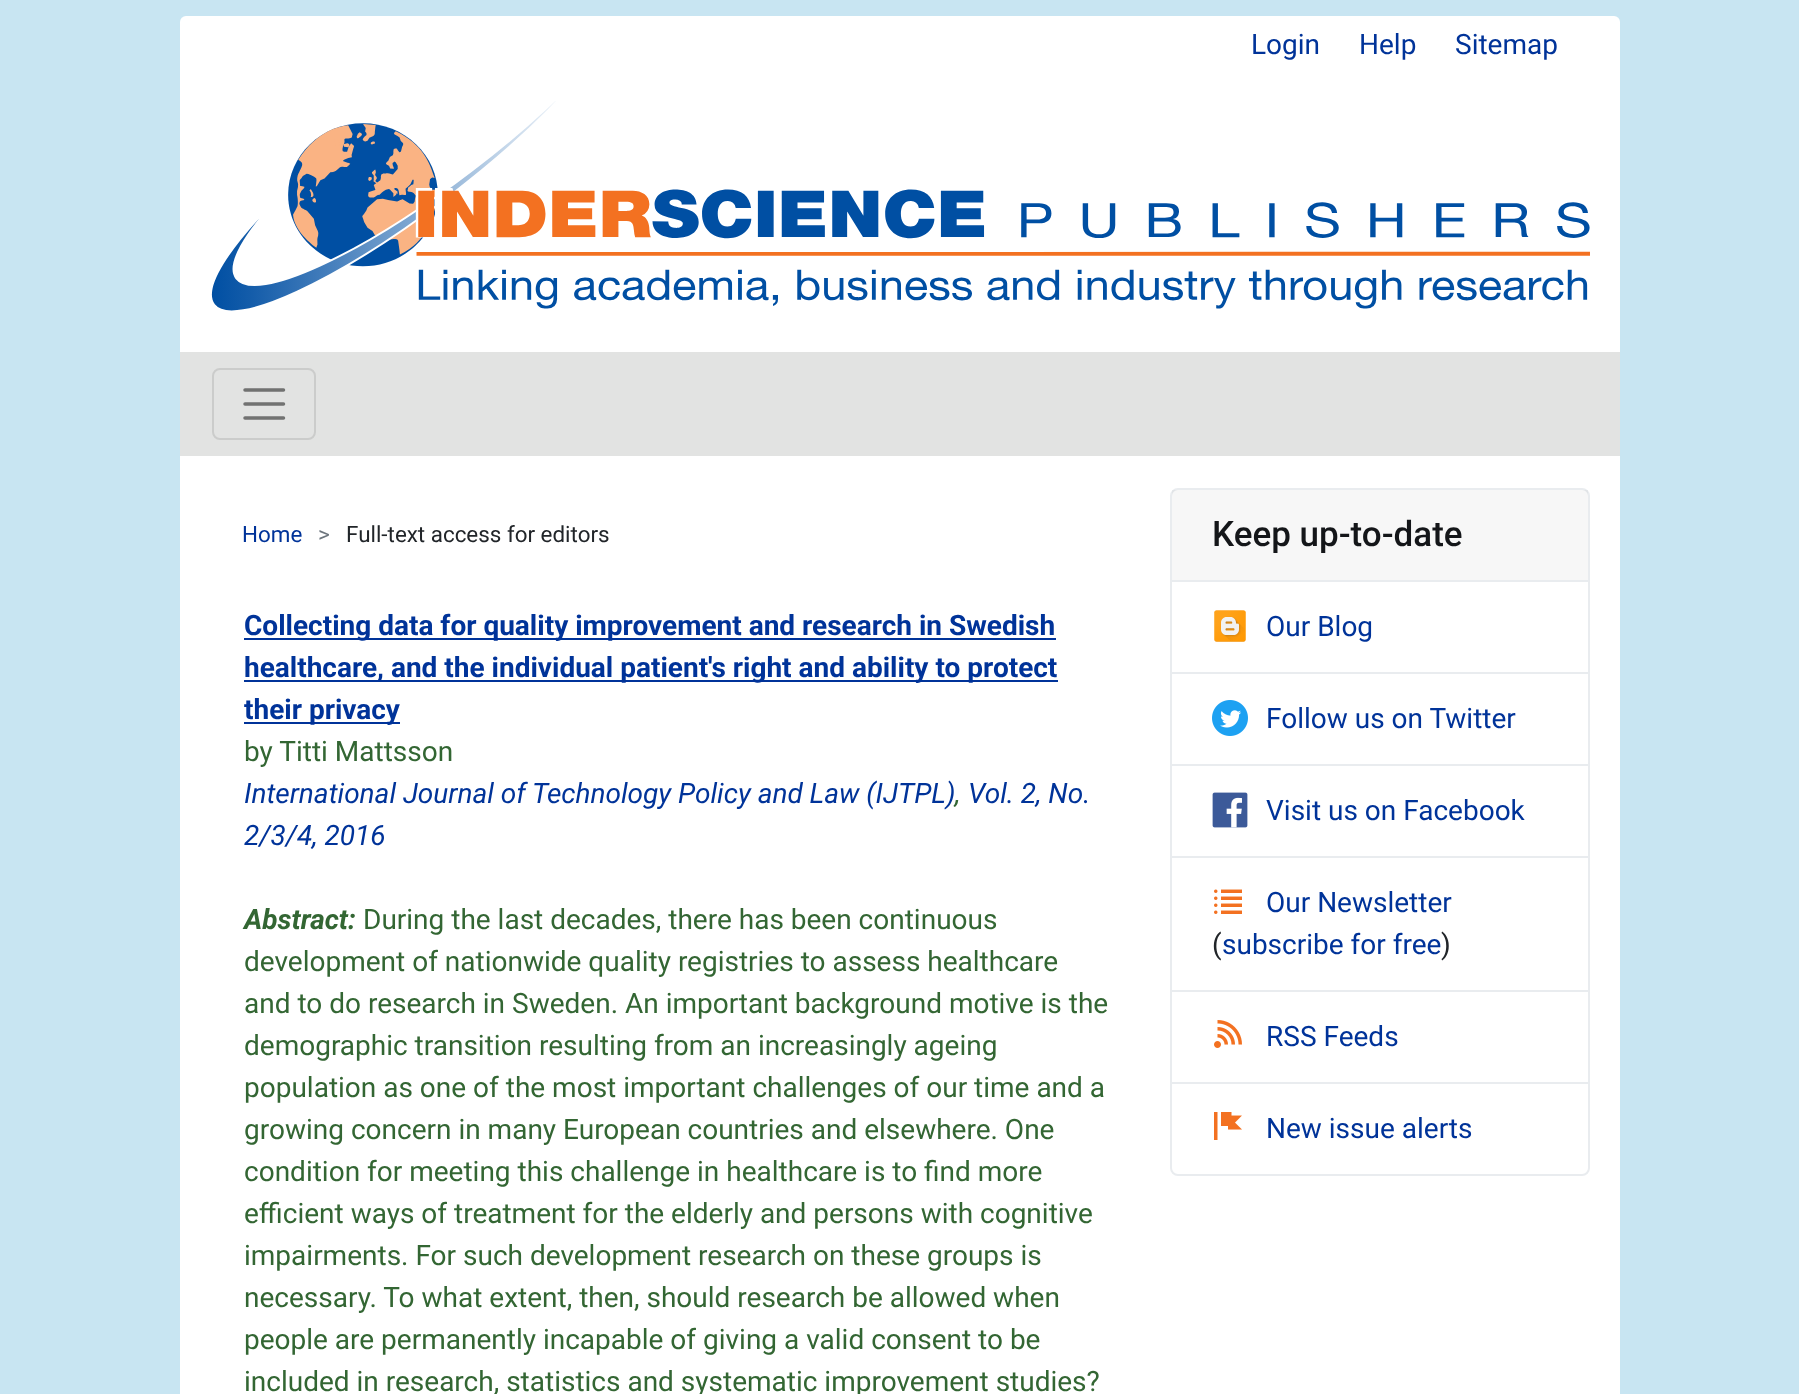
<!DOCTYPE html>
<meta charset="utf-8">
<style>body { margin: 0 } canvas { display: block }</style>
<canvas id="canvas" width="1799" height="1394"></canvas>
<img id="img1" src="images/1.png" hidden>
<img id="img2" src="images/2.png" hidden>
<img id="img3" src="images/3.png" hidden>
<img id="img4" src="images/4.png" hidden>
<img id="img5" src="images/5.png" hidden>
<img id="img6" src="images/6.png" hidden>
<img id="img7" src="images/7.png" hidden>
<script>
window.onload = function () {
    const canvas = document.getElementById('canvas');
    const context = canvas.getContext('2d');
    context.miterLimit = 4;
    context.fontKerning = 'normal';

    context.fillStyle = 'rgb(200, 229, 242)';
    context.fillRect(0, 0, 1799, 1394);
    context.fillStyle = 'rgb(255, 255, 255)';
    context.beginPath();
    context.roundRect(180, 16, 1440, 440, [6, 6, 0, 0]);
    context.fill();
    context.drawImage(document.getElementById('img1'), 211, 101, 1379, 210);
    context.fillStyle = 'rgb(226, 227, 226)';
    context.fillRect(180, 352, 1440, 104);
    context.beginPath();
    context.roundRect(213, 369, 102, 70, 7);
    context.strokeStyle = 'rgb(203, 204, 203)';
    context.lineWidth = 2;
    context.stroke();
    context.beginPath();
    context.moveTo(245, 390);
    context.lineTo(283.5, 390);
    context.moveTo(245, 404);
    context.lineTo(283.5, 404);
    context.moveTo(245, 418);
    context.lineTo(283.5, 418);
    context.strokeStyle = 'rgb(113, 114, 113)';
    context.lineWidth = 3.5;
    context.lineCap = 'round';
    context.stroke();
    context.fillStyle = 'rgb(255, 255, 255)';
    context.fillRect(180, 456, 1440, 938);
    context.fillStyle = 'rgb(0, 51, 153)';
    context.fillRect(244, 638, 812, 2);
    context.fillRect(244, 680, 814, 2);
    context.fillRect(244, 722, 156, 2);
    context.beginPath();
    context.roundRect(1171, 489, 418, 686, 7);
    context.strokeStyle = 'rgb(233, 236, 239)';
    context.lineWidth = 2;
    context.stroke();
    context.fillStyle = 'rgba(0, 0, 0, 0.03)';
    context.fillRect(1172, 490, 416, 90);
    context.fillStyle = 'rgb(233, 236, 239)';
    context.fillRect(1172, 580, 416, 2);
    context.drawImage(document.getElementById('img2'), 1214, 610, 32, 32);
    context.fillRect(1172, 672, 416, 2);
    context.drawImage(document.getElementById('img3'), 1212, 700, 36, 36);
    context.fillRect(1172, 764, 416, 2);
    context.drawImage(document.getElementById('img4'), 1212, 792, 36, 36);
    context.fillRect(1172, 856, 416, 2);
    context.drawImage(document.getElementById('img5'), 1214, 889, 28, 25);
    context.fillRect(1172, 990, 416, 2);
    context.drawImage(document.getElementById('img6'), 1214, 1020, 28, 28);
    context.fillRect(1172, 1082, 416, 2);
    context.drawImage(document.getElementById('img7'), 1214, 1112, 28, 28);
    context.font = '28px Roboto';
    context.fillStyle = 'rgb(0, 51, 153)';
    context.fillText('Login', 1251, 54);
    context.fillText('Help', 1359, 54);
    context.fillText('Sitemap', 1455, 54);
    context.font = '22.4px Roboto';
    context.fillText('Home', 242, 542);
    context.fillStyle = 'rgb(108, 117, 125)';
    context.fillText('>', 318, 542);
    context.fillStyle = 'rgb(33, 37, 41)';
    context.fillText('Full-text access for editors', 346, 542);
    context.font = 'bold 28px Roboto';
    context.fillStyle = 'rgb(0, 51, 153)';
    context.fillText('Collecting data for quality improvement and research in Swedish', 244, 635);
    context.fillText('healthcare, and the individual patient\'s right and ability to protect', 244, 677);
    context.fillText('their privacy', 244, 719);
    context.font = '28px Roboto';
    context.fillStyle = 'rgb(51, 102, 51)';
    context.fillText('by Titti Mattsson', 244, 761);
    context.font = 'italic 28px Roboto';
    context.fillStyle = 'rgb(0, 51, 153)';
    context.fillText('International Journal of Technology Policy and Law (IJTPL)', 244, 803);
    context.fillStyle = 'rgb(51, 102, 51)';
    context.fillText(',', 955, 803);
    context.fillStyle = 'rgb(0, 51, 153)';
    context.fillText('Vol. 2, No.', 968, 803);
    context.fillText('2/3/4, 2016', 244, 845);
    context.font = 'italic bold 28px Roboto';
    context.fillStyle = 'rgb(51, 102, 51)';
    context.fillText('Abstract:', 244, 929);
    context.font = '28px Roboto';
    context.fillText('During the last decades, there has been continuous', 363, 929);
    context.fillText('development of nationwide quality registries to assess healthcare', 244, 971);
    context.fillText('and to do research in Sweden. An important background motive is the', 244, 1013);
    context.fillText('demographic transition resulting from an increasingly ageing', 244, 1055);
    context.fillText('population as one of the most important challenges of our time and a', 244, 1097);
    context.fillText('growing concern in many European countries and elsewhere. One', 244, 1139);
    context.fillText('condition for meeting this challenge in healthcare is to find more', 244, 1181);
    context.fillText('efficient ways of treatment for the elderly and persons with cognitive', 244, 1223);
    context.fillText('impairments. For such development research on these groups is', 244, 1265);
    context.fillText('necessary. To what extent, then, should research be allowed when', 244, 1307);
    context.fillText('people are permanently incapable of giving a valid consent to be', 244, 1349);
    context.fillText('included in research, statistics and systematic improvement studies?', 244, 1391);
    context.font = '500 35px Roboto';
    context.fillStyle = 'rgb(20, 22, 25)';
    context.fillText('Keep up-to-date', 1212, 546);
    context.font = '28px Roboto';
    context.fillStyle = 'rgb(0, 51, 153)';
    context.fillText('Our Blog', 1266, 636);
    context.fillText('Follow us on Twitter', 1266, 728);
    context.fillText('Visit us on Facebook', 1266, 820);
    context.fillText('Our Newsletter', 1266, 912);
    context.fillStyle = 'rgb(33, 37, 41)';
    context.fillText('(', 1212, 954);
    context.fillStyle = 'rgb(0, 51, 153)';
    context.fillText('subscribe for free', 1222, 954);
    context.fillStyle = 'rgb(33, 37, 41)';
    context.fillText(')', 1441, 954);
    context.fillStyle = 'rgb(0, 51, 153)';
    context.fillText('RSS Feeds', 1266, 1046);
    context.fillText('New issue alerts', 1266, 1138);
};
</script>
